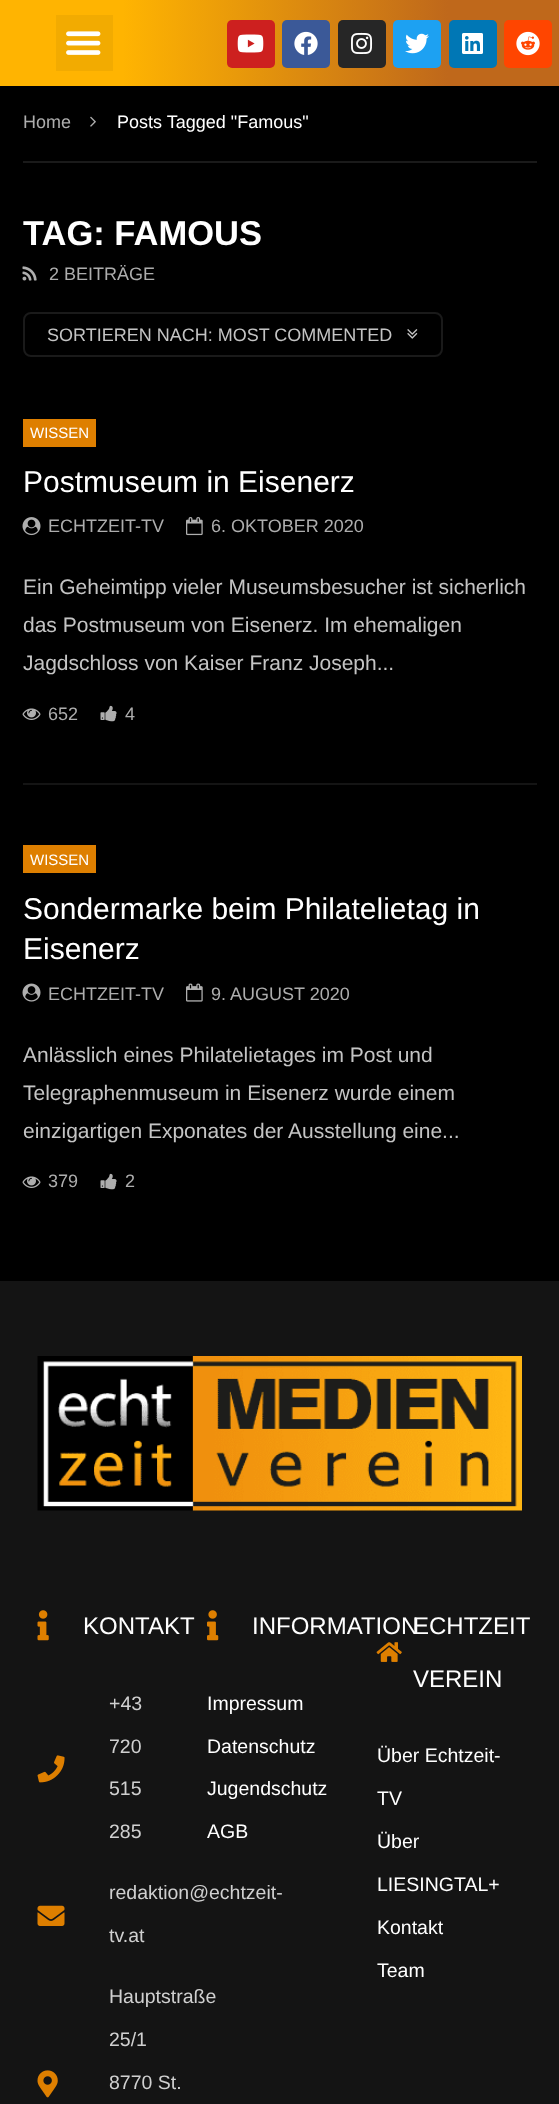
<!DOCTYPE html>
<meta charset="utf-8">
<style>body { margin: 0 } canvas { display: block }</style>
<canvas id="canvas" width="559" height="2104"></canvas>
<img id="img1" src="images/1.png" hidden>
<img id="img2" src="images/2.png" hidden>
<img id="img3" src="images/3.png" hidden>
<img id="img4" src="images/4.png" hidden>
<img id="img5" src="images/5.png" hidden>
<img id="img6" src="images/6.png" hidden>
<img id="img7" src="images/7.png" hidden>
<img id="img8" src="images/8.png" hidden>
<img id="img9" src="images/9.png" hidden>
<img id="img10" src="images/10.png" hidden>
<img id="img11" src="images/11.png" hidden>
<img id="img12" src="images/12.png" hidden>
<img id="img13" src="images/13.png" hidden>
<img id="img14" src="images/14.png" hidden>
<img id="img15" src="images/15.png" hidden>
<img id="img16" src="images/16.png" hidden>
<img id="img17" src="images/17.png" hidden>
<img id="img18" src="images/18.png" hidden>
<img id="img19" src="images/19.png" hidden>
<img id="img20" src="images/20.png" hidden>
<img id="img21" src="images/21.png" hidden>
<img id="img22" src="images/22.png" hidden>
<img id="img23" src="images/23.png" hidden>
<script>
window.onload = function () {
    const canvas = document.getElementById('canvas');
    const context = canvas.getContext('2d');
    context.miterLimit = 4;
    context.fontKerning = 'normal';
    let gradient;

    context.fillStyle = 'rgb(0, 0, 0)';
    context.fillRect(0, 0, 559, 2104);
    gradient = context.createLinearGradient(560, 43, 0, 43);
    gradient.addColorStop(0.2, 'rgb(191, 104, 27)');
    gradient.addColorStop(0.78, 'rgb(255, 180, 1)');
    context.fillStyle = gradient;
    context.fillRect(0, 0, 559, 86);
    context.fillStyle = 'rgb(242, 171, 1)';
    context.fillRect(56, 15, 57, 56);
    context.drawImage(document.getElementById('img1'), 66, 31, 35, 24);
    context.fillStyle = 'rgb(205, 32, 31)';
    context.beginPath();
    context.roundRect(227, 20, 48, 48, 5);
    context.fill();
    context.drawImage(document.getElementById('img2'), 237, 34, 27, 19);
    context.fillStyle = 'rgb(59, 89, 152)';
    context.beginPath();
    context.roundRect(282, 20, 48, 48, 5);
    context.fill();
    context.drawImage(document.getElementById('img3'), 294, 31, 24, 24);
    context.fillStyle = 'rgb(38, 38, 38)';
    context.beginPath();
    context.roundRect(338, 20, 48, 48, 5);
    context.fill();
    context.drawImage(document.getElementById('img4'), 351, 32, 22, 22);
    context.fillStyle = 'rgb(29, 161, 242)';
    context.beginPath();
    context.roundRect(393, 20, 48, 48, 5);
    context.fill();
    context.drawImage(document.getElementById('img5'), 405, 33, 24, 21);
    context.fillStyle = 'rgb(0, 119, 181)';
    context.beginPath();
    context.roundRect(449, 20, 48, 48, 5);
    context.fill();
    context.drawImage(document.getElementById('img6'), 462, 33, 21, 21);
    context.fillStyle = 'rgb(255, 69, 0)';
    context.beginPath();
    context.roundRect(504, 20, 48, 48, 5);
    context.fill();
    context.drawImage(document.getElementById('img7'), 516, 31, 24, 25);
    context.fillStyle = 'rgb(26, 26, 26)';
    context.fillRect(23, 161, 514, 2);
    context.drawImage(document.getElementById('img8'), 90, 116, 6, 11);
    context.drawImage(document.getElementById('img9'), 22, 266, 15, 15);
    context.beginPath();
    context.roundRect(24, 313, 418, 43, 7);
    context.strokeStyle = 'rgb(26, 26, 26)';
    context.lineWidth = 2;
    context.stroke();
    context.drawImage(document.getElementById('img10'), 407, 329, 11, 10);
    context.fillStyle = 'rgb(20, 20, 20)';
    context.fillRect(23, 783, 514, 2);
    context.fillStyle = 'rgb(222, 127, 0)';
    context.fillRect(23, 419, 73, 28);
    context.drawImage(document.getElementById('img11'), 22, 517, 19, 19);
    context.drawImage(document.getElementById('img12'), 186, 517, 17, 19);
    context.drawImage(document.getElementById('img13'), 22, 708, 19, 12);
    context.drawImage(document.getElementById('img14'), 100, 705, 17, 17);
    context.fillRect(23, 845, 73, 28);
    context.drawImage(document.getElementById('img15'), 22, 983, 19, 19);
    context.drawImage(document.getElementById('img16'), 186, 983, 17, 19);
    context.drawImage(document.getElementById('img13'), 22, 1176, 19, 12);
    context.drawImage(document.getElementById('img14'), 100, 1173, 17, 17);
    context.fillStyle = 'rgb(20, 20, 20)';
    context.fillRect(0, 1281, 559, 823);
    context.drawImage(document.getElementById('img17'), 37, 1356, 485, 155);
    context.drawImage(document.getElementById('img18'), 37, 1610, 12, 31);
    context.drawImage(document.getElementById('img19'), 37, 1755, 28, 28);
    context.drawImage(document.getElementById('img20'), 37, 1905, 28, 21);
    context.drawImage(document.getElementById('img21'), 37, 2070, 21, 28);
    context.drawImage(document.getElementById('img22'), 207, 1610, 12, 31);
    context.drawImage(document.getElementById('img23'), 376, 1642, 26, 20);
    context.font = '18px Liberation Sans';
    context.fillStyle = 'rgb(173, 173, 173)';
    context.fillText('Home', 23, 128);
    context.fillStyle = 'rgb(255, 255, 255)';
    context.fillText('Posts Tagged "Famous"', 117, 128);
    context.font = 'bold 34.5px Liberation Sans';
    context.fillText('TAG: FAMOUS', 23, 245);
    context.font = '18px Liberation Sans';
    context.fillStyle = 'rgb(173, 173, 173)';
    context.fillText('2 BEITRÄGE', 49, 280);
    context.fillStyle = 'rgb(196, 196, 196)';
    context.fillText('SORTIEREN NACH: MOST COMMENTED', 47, 341);
    context.font = '15px Liberation Sans';
    context.fillStyle = 'rgb(255, 255, 255)';
    context.fillText('WISSEN', 30, 438);
    context.font = '30px Liberation Sans';
    context.fillText('Postmuseum in Eisenerz', 23, 492);
    context.font = '18px Liberation Sans';
    context.fillStyle = 'rgb(173, 173, 173)';
    context.fillText('ECHTZEIT-TV', 48, 532);
    context.fillText('6. OKTOBER 2020', 211, 532);
    context.font = '21px Liberation Sans';
    context.fillStyle = 'rgb(196, 196, 196)';
    context.fillText('Ein Geheimtipp vieler Museumsbesucher ist sicherlich', 23, 594);
    context.fillText('das Postmuseum von Eisenerz. Im ehemaligen', 23, 632);
    context.fillText('Jagdschloss von Kaiser Franz Joseph...', 23, 670);
    context.font = '18px Liberation Sans';
    context.fillStyle = 'rgb(173, 173, 173)';
    context.fillText('652', 48, 720);
    context.fillText('4', 125, 720);
    context.font = '15px Liberation Sans';
    context.fillStyle = 'rgb(255, 255, 255)';
    context.fillText('WISSEN', 30, 865);
    context.font = '30px Liberation Sans';
    context.fillText('Sondermarke beim Philatelietag in', 23, 919);
    context.fillText('Eisenerz', 23, 959);
    context.font = '18px Liberation Sans';
    context.fillStyle = 'rgb(173, 173, 173)';
    context.fillText('ECHTZEIT-TV', 48, 1000);
    context.fillText('9. AUGUST 2020', 211, 1000);
    context.font = '21px Liberation Sans';
    context.fillStyle = 'rgb(196, 196, 196)';
    context.fillText('Anlässlich eines Philatelietages im Post und', 23, 1062);
    context.fillText('Telegraphenmuseum in Eisenerz wurde einem', 23, 1100);
    context.fillText('einzigartigen Exponates der Ausstellung eine...', 23, 1138);
    context.font = '18px Liberation Sans';
    context.fillStyle = 'rgb(173, 173, 173)';
    context.fillText('379', 48, 1187);
    context.fillText('2', 125, 1187);
    context.font = '24px Liberation Sans';
    context.fillStyle = 'rgb(255, 255, 255)';
    context.fillText('KONTAKT', 83, 1634);
    context.font = '19.5px Liberation Sans';
    context.fillStyle = 'rgb(208, 208, 208)';
    context.fillText('+43', 109, 1710);
    context.fillText('720', 109, 1753);
    context.fillText('515', 109, 1795);
    context.fillText('285', 109, 1838);
    context.fillText('redaktion@echtzeit-', 109, 1899);
    context.fillText('tv.at', 109, 1942);
    context.fillText('Hauptstraße', 109, 2003);
    context.fillText('25/1', 109, 2046);
    context.fillText('8770 St.', 109, 2089);
    context.font = '24px Liberation Sans';
    context.fillStyle = 'rgb(255, 255, 255)';
    context.fillText('INFORMATION', 252, 1634);
    context.font = '19.5px Liberation Sans';
    context.fillText('Impressum', 207, 1710);
    context.fillText('Datenschutz', 207, 1753);
    context.fillText('Jugendschutz', 207, 1795);
    context.fillText('AGB', 207, 1838);
    context.font = '24px Liberation Sans';
    context.fillText('ECHTZEIT', 413, 1634);
    context.fillText('VEREIN', 413, 1687);
    context.font = '19.5px Liberation Sans';
    context.fillText('Über Echtzeit-', 377, 1762);
    context.fillText('TV', 377, 1805);
    context.fillText('Über', 377, 1848);
    context.fillText('LIESINGTAL+', 377, 1891);
    context.fillText('Kontakt', 377, 1934);
    context.fillText('Team', 377, 1977);
};
</script>
